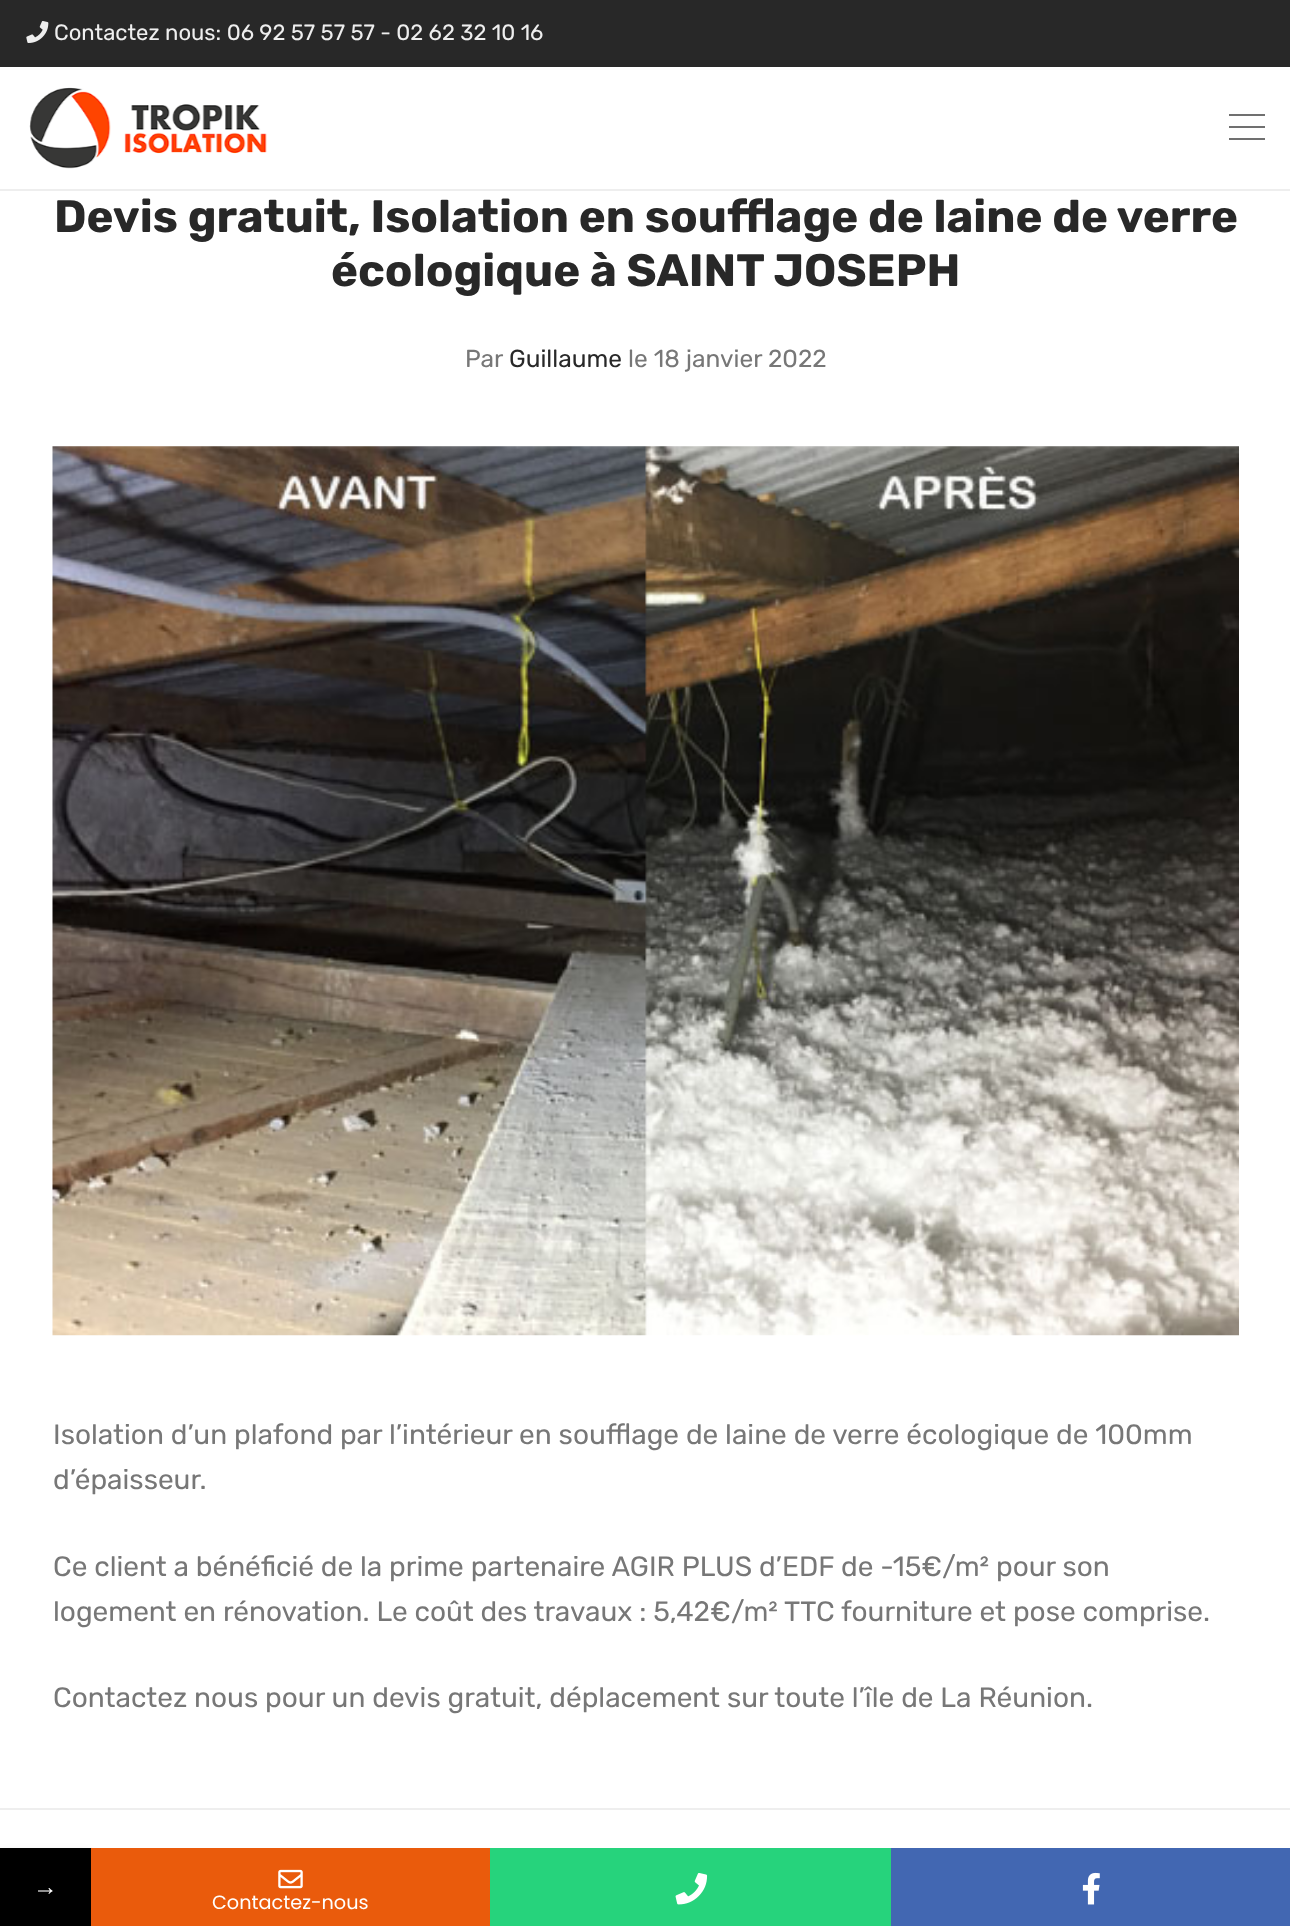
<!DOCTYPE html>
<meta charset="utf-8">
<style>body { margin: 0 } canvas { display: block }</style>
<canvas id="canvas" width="1290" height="1926"></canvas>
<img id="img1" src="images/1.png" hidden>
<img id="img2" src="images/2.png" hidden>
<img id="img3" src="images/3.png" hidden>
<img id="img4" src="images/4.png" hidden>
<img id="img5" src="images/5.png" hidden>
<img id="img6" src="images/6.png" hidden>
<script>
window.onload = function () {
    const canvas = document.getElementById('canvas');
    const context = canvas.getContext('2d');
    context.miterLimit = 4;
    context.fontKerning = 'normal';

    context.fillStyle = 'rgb(255, 255, 255)';
    context.fillRect(0, 0, 1290, 1926);
    context.fillStyle = 'rgb(40, 40, 40)';
    context.fillRect(0, 0, 1290, 67);
    context.drawImage(document.getElementById('img1'), 26, 21, 23, 22);
    context.fillStyle = 'rgb(238, 238, 238)';
    context.fillRect(0, 189, 1290, 2);
    context.drawImage(document.getElementById('img2'), 29, 87, 238, 82);
    context.fillStyle = 'rgb(112, 112, 112)';
    context.fillRect(1229, 114, 36, 2);
    context.fillRect(1229, 126, 36, 2);
    context.fillRect(1229, 138, 36, 2);
    context.drawImage(document.getElementById('img3'), 52, 446, 1187, 890);
    context.fillStyle = 'rgb(238, 238, 238)';
    context.fillRect(0, 1808, 1290, 2);
    context.fillStyle = 'rgba(0, 0, 0, 0.16)';
    context.filter = 'blur(5px)';
    context.beginPath();
    context.rect(0, 1853, 91, 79);
    context.fill();
    context.filter = 'none';
    context.fillStyle = 'rgb(0, 0, 0)';
    context.fillRect(0, 1848, 91, 78);
    context.fillStyle = 'rgb(38, 211, 124)';
    context.fillRect(490, 1848, 401, 78);
    context.drawImage(document.getElementById('img4'), 675, 1873, 33, 32);
    context.fillStyle = 'rgb(66, 103, 178)';
    context.fillRect(891, 1848, 399, 78);
    context.drawImage(document.getElementById('img5'), 1082, 1872, 18, 33);
    context.fillStyle = 'rgb(234, 91, 12)';
    context.fillRect(91, 1848, 399, 78);
    context.drawImage(document.getElementById('img6'), 278, 1869, 25, 20);
    context.font = '22.05px Rubik';
    context.fillStyle = 'rgb(238, 238, 238)';
    context.fillText('Contactez nous: 06 92 57 57 57 - 02 62 32 10 16', 54, 40);
    context.font = 'bold 45.5px Rubik';
    context.fillStyle = 'rgb(40, 40, 40)';
    context.fillText('Devis gratuit, Isolation en soufflage de laine de verre', 54, 232);
    context.fillText('écologique à SAINT JOSEPH', 331, 286);
    context.font = '24.5px Rubik';
    context.fillStyle = 'rgb(119, 119, 119)';
    context.fillText('Par', 465, 367);
    context.fillStyle = 'rgb(40, 40, 40)';
    context.fillText('Guillaume', 509, 367);
    context.fillStyle = 'rgb(119, 119, 119)';
    context.fillText('le 18 janvier 2022', 628, 367);
    context.font = '28px Rubik';
    context.fillText('Isolation d’un plafond par l’intérieur en soufflage de laine de verre écologique de 100mm', 53, 1444);
    context.fillText('d’épaisseur.', 53, 1489);
    context.fillText('Ce client a bénéficié de la prime partenaire AGIR PLUS d’EDF de -15€/m² pour son', 53, 1576);
    context.fillText('logement en rénovation. Le coût des travaux : 5,42€/m² TTC fourniture et pose comprise.', 53, 1621);
    context.fillText('Contactez nous pour un devis gratuit, déplacement sur toute l’île de La Réunion.', 53, 1707);
    context.font = '24.5px Liberation Serif';
    context.fillStyle = 'rgb(255, 255, 255)';
    context.fillText('→', 33, 1895);
    context.font = '19.25px Poppins';
    context.fillText('Contactez-nous', 212, 1909);
};
</script>
